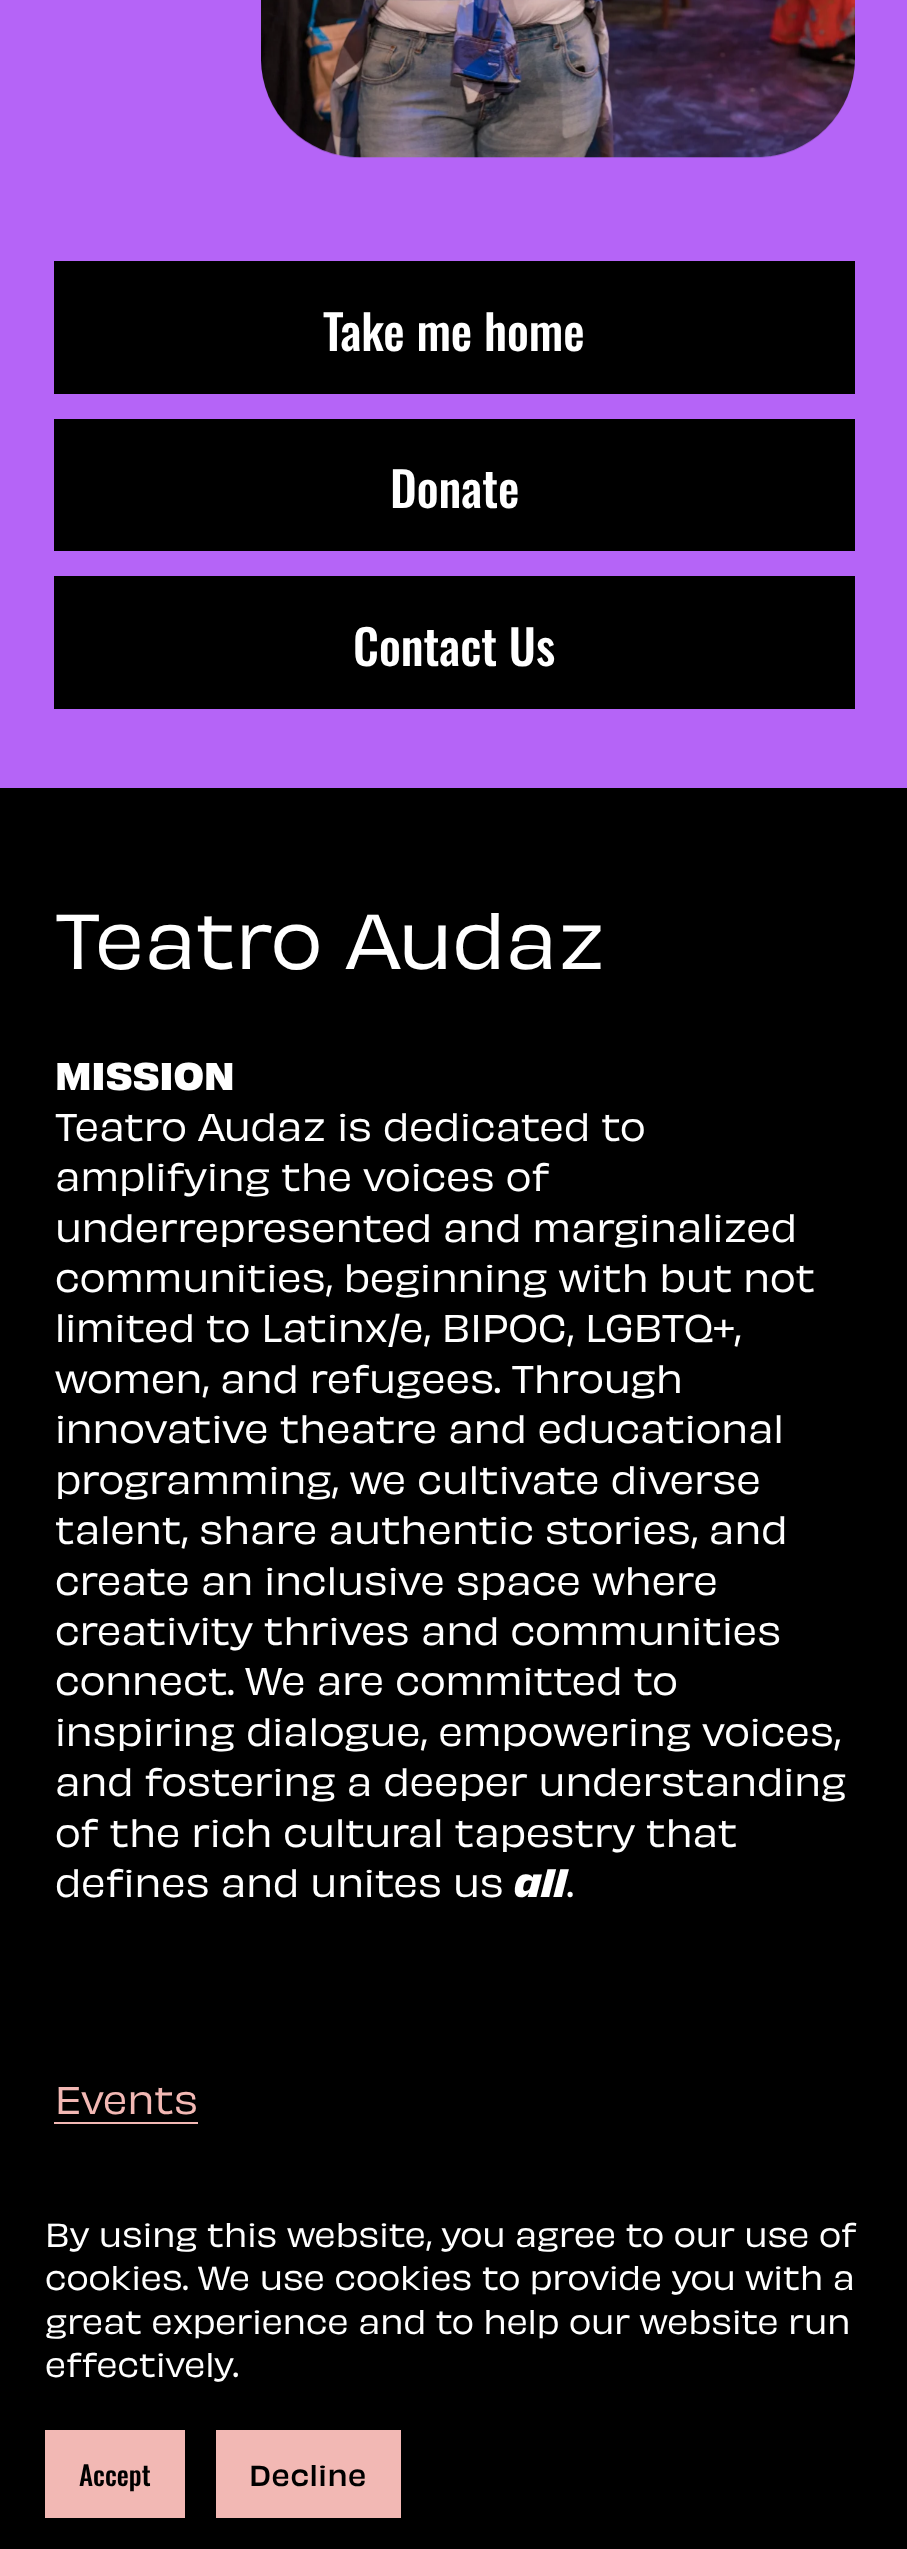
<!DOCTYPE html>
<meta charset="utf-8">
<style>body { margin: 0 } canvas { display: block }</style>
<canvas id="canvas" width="907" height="2549"></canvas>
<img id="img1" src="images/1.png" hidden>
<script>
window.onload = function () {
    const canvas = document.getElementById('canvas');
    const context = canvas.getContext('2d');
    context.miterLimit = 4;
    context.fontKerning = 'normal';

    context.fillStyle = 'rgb(181, 100, 247)';
    context.fillRect(0, 0, 907, 2549);
    context.drawImage(document.getElementById('img1'), 261, 0, 594, 158);
    context.fillStyle = 'rgb(0, 0, 0)';
    context.fillRect(54, 261, 801, 133);
    context.fillRect(54, 419, 801, 132);
    context.fillRect(54, 576, 801, 133);
    context.fillRect(0, 788, 907, 1761);
    context.fillStyle = 'rgb(242, 184, 180)';
    context.fillRect(54, 2122, 144, 2);
    context.fillRect(45, 2430, 140, 88);
    context.fillRect(216, 2430, 185, 88);
    context.font = '500 48px Oswald';
    context.fillStyle = 'rgb(255, 255, 255)';
    context.fillText('Take me home', 323, 351);
    context.fillText('Donate', 390, 508);
    context.fillText('Contact Us', 353, 666);
    context.letterSpacing = '0.4px';
    context.font = '600 72.5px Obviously';
    context.fillText('Teatro Audaz', 55, 969);
    context.letterSpacing = '0px';
    context.font = 'bold 36px Obviously';
    context.fillText('MISSION', 55, 1090);
    context.font = '600 36px Obviously';
    context.fillText('Teatro Audaz is dedicated to', 55, 1141);
    context.fillText('amplifying the voices of', 55, 1191);
    context.fillText('underrepresented and marginalized', 55, 1242);
    context.fillText('communities, beginning with but not', 55, 1292);
    context.fillText('limited to Latinx/e, BIPOC, LGBTQ+,', 55, 1342);
    context.fillText('women, and refugees. Through', 55, 1393);
    context.fillText('innovative theatre and educational', 55, 1443);
    context.fillText('programming, we cultivate diverse', 55, 1494);
    context.fillText('talent, share authentic stories, and', 55, 1544);
    context.fillText('create an inclusive space where', 55, 1595);
    context.fillText('creativity thrives and communities', 55, 1645);
    context.fillText('connect. We are committed to', 55, 1695);
    context.fillText('inspiring dialogue, empowering voices,', 55, 1746);
    context.fillText('and fostering a deeper understanding', 55, 1796);
    context.fillText('of the rich cultural tapestry that', 55, 1847);
    context.fillText('defines and unites us', 55, 1897);
    context.font = 'italic bold 36px Obviously';
    context.fillText('all', 514, 1897);
    context.font = '600 36px Obviously';
    context.fillText('.', 567, 1897);
    context.fillStyle = 'rgb(242, 184, 180)';
    context.fillText('Events', 55, 2114);
    context.font = '600 31.15px Obviously';
    context.fillStyle = 'rgb(255, 255, 255)';
    context.fillText('By using this website, you agree to our use of', 45, 2247);
    context.fillText('cookies. We use cookies to provide you with a', 45, 2290);
    context.fillText('great experience and to help our website run', 45, 2334);
    context.fillText('effectively.', 45, 2377);
    context.font = '500 27px Oswald';
    context.fillStyle = 'rgb(0, 0, 0)';
    context.fillText('Accept', 79, 2486);
    context.letterSpacing = '0.5px';
    context.font = '600 27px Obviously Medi';
    context.fillText('Decline', 249, 2486);
};
</script>
